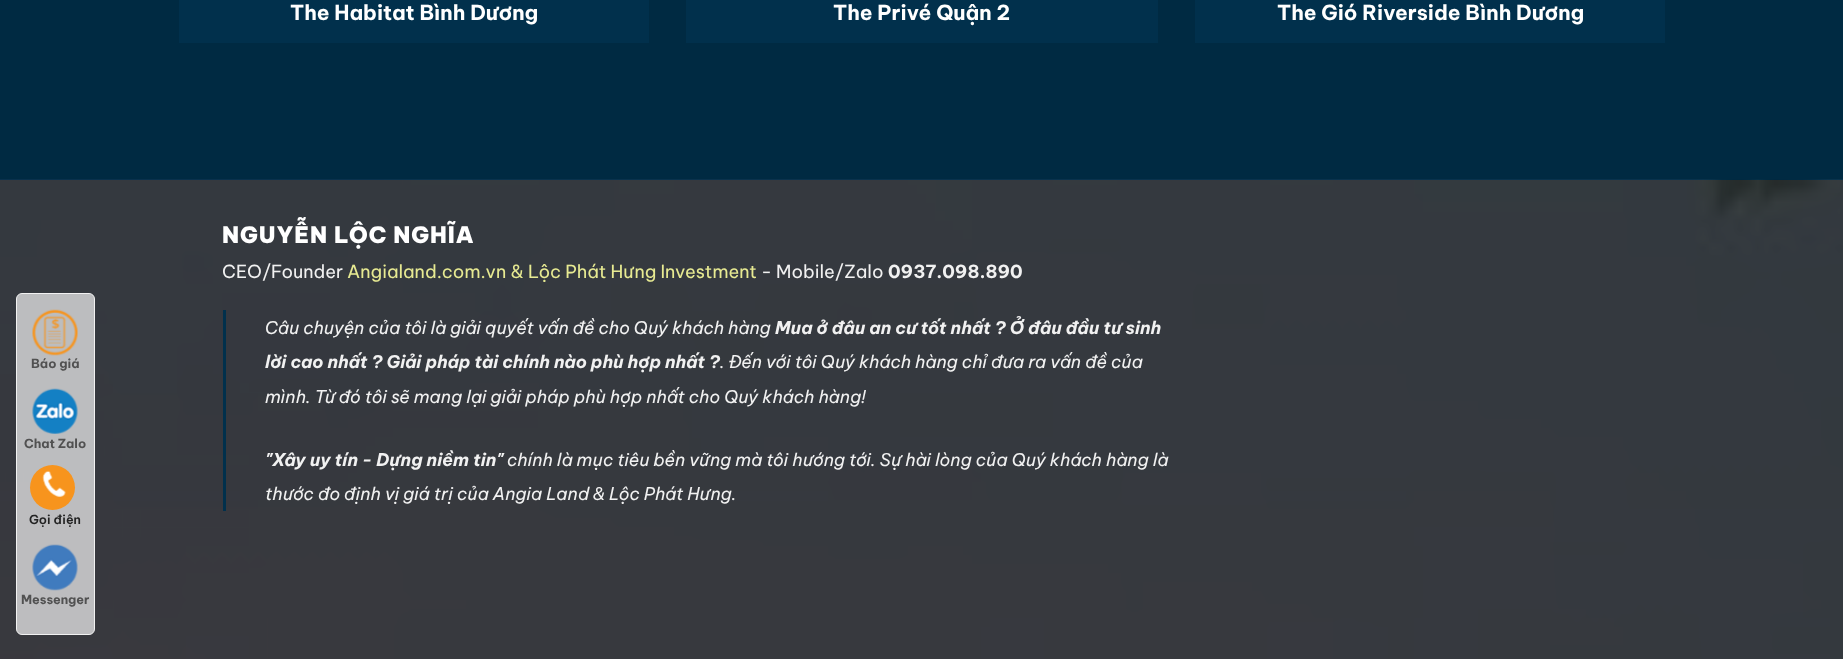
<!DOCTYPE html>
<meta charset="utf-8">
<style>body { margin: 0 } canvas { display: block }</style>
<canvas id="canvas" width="1843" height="659"></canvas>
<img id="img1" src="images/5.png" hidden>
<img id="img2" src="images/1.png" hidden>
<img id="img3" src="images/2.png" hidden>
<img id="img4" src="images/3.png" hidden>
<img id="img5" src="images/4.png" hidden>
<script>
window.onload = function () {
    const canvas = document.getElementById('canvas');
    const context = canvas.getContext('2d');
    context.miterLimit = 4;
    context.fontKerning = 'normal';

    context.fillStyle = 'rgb(0, 42, 66)';
    context.fillRect(0, 0, 1843, 659);
    context.drawImage(document.getElementById('img1'), 0, 179, 1843, 480);
    context.fillStyle = 'rgba(255, 255, 255, 0.67)';
    context.beginPath();
    context.roundRect(16.5, 293.5, 78, 341, 5.5);
    context.fill();
    context.strokeStyle = 'rgb(242, 242, 242)';
    context.stroke();
    context.drawImage(document.getElementById('img2'), 32, 309, 46, 47);
    context.drawImage(document.getElementById('img3'), 32, 388, 46, 46);
    context.fillStyle = 'rgb(247, 148, 29)';
    context.beginPath();
    context.arc(52.5, 487.5, 22.5, 0, 2 * Math.PI);
    context.fill();
    context.drawImage(document.getElementById('img4'), 42, 470, 24, 27);
    context.drawImage(document.getElementById('img5'), 32, 544, 46, 47);
    context.fillStyle = 'rgb(1, 48, 76)';
    context.fillRect(179, 0, 470, 43);
    context.fillRect(686, 0, 472, 43);
    context.fillRect(1195, 0, 470, 43);
    context.fillRect(223, 310, 3, 201);
    context.font = 'bold 12.5px Be Vietnam Pro';
    context.fillStyle = 'rgb(81, 81, 81)';
    context.fillText('Báo giá', 31, 368);
    context.fillText('Chat Zalo', 24, 448);
    context.font = '600 12.5px Be Vietnam Pro';
    context.fillStyle = 'rgb(34, 34, 34)';
    context.fillText('Gọi điện', 29, 524);
    context.font = 'bold 12.5px Be Vietnam Pro';
    context.fillStyle = 'rgb(81, 81, 81)';
    context.fillText('Messenger', 21, 604);
    context.font = 'bold 20.75px Be Vietnam Pro';
    context.fillStyle = 'rgb(255, 255, 255)';
    context.fillText('The Habitat Bình Dương', 290, 20);
    context.fillText('The Privé Quận 2', 833, 20);
    context.fillText('The Gió Riverside Bình Dương', 1277, 20);
    context.letterSpacing = '0.9px';
    context.font = '900 22.5px Be Vietnam Pro';
    context.fillText('NGUYỄN LỘC NGHĨA', 222, 243);
    context.letterSpacing = '0px';
    context.font = '18px Be Vietnam Pro';
    context.fillStyle = 'rgb(241, 241, 241)';
    context.fillText('CEO/Founder', 222, 278);
    context.fillStyle = 'rgb(231, 234, 146)';
    context.fillText('Angialand.com.vn & Lộc Phát Hưng Investment', 347, 278);
    context.fillStyle = 'rgb(241, 241, 241)';
    context.fillText('- Mobile/Zalo', 761, 278);
    context.font = 'bold 18px Be Vietnam Pro';
    context.fillText('0937.098.890', 888, 278);
    context.font = 'italic 17.5px Be Vietnam Pro';
    context.fillText('Câu chuyện của tôi là giải quyết vấn đề cho Quý khách hàng', 265, 334);
    context.font = 'italic bold 17.5px Be Vietnam Pro';
    context.fillText('Mua ở đâu an cư tốt nhất ? Ở đâu đầu tư sinh', 775, 334);
    context.fillText('lời cao nhất ? Giải pháp tài chính nào phù hợp nhất ?', 265, 368);
    context.font = 'italic 17.5px Be Vietnam Pro';
    context.fillText('. Đến với tôi Quý khách hàng chỉ đưa ra vấn đề của', 720, 368);
    context.fillText('mình. Từ đó tôi sẽ mang lại giải pháp phù hợp nhất cho Quý khách hàng!', 265, 403);
    context.font = 'italic bold 17.5px Be Vietnam Pro';
    context.fillText('"Xây uy tín - Dựng niềm tin"', 265, 466);
    context.font = 'italic 17.5px Be Vietnam Pro';
    context.fillText('chính là mục tiêu bền vững mà tôi hướng tới. Sự hài lòng của Quý khách hàng là', 507, 466);
    context.fillText('thước đo định vị giá trị của Angia Land & Lộc Phát Hưng.', 265, 500);
};
</script>
